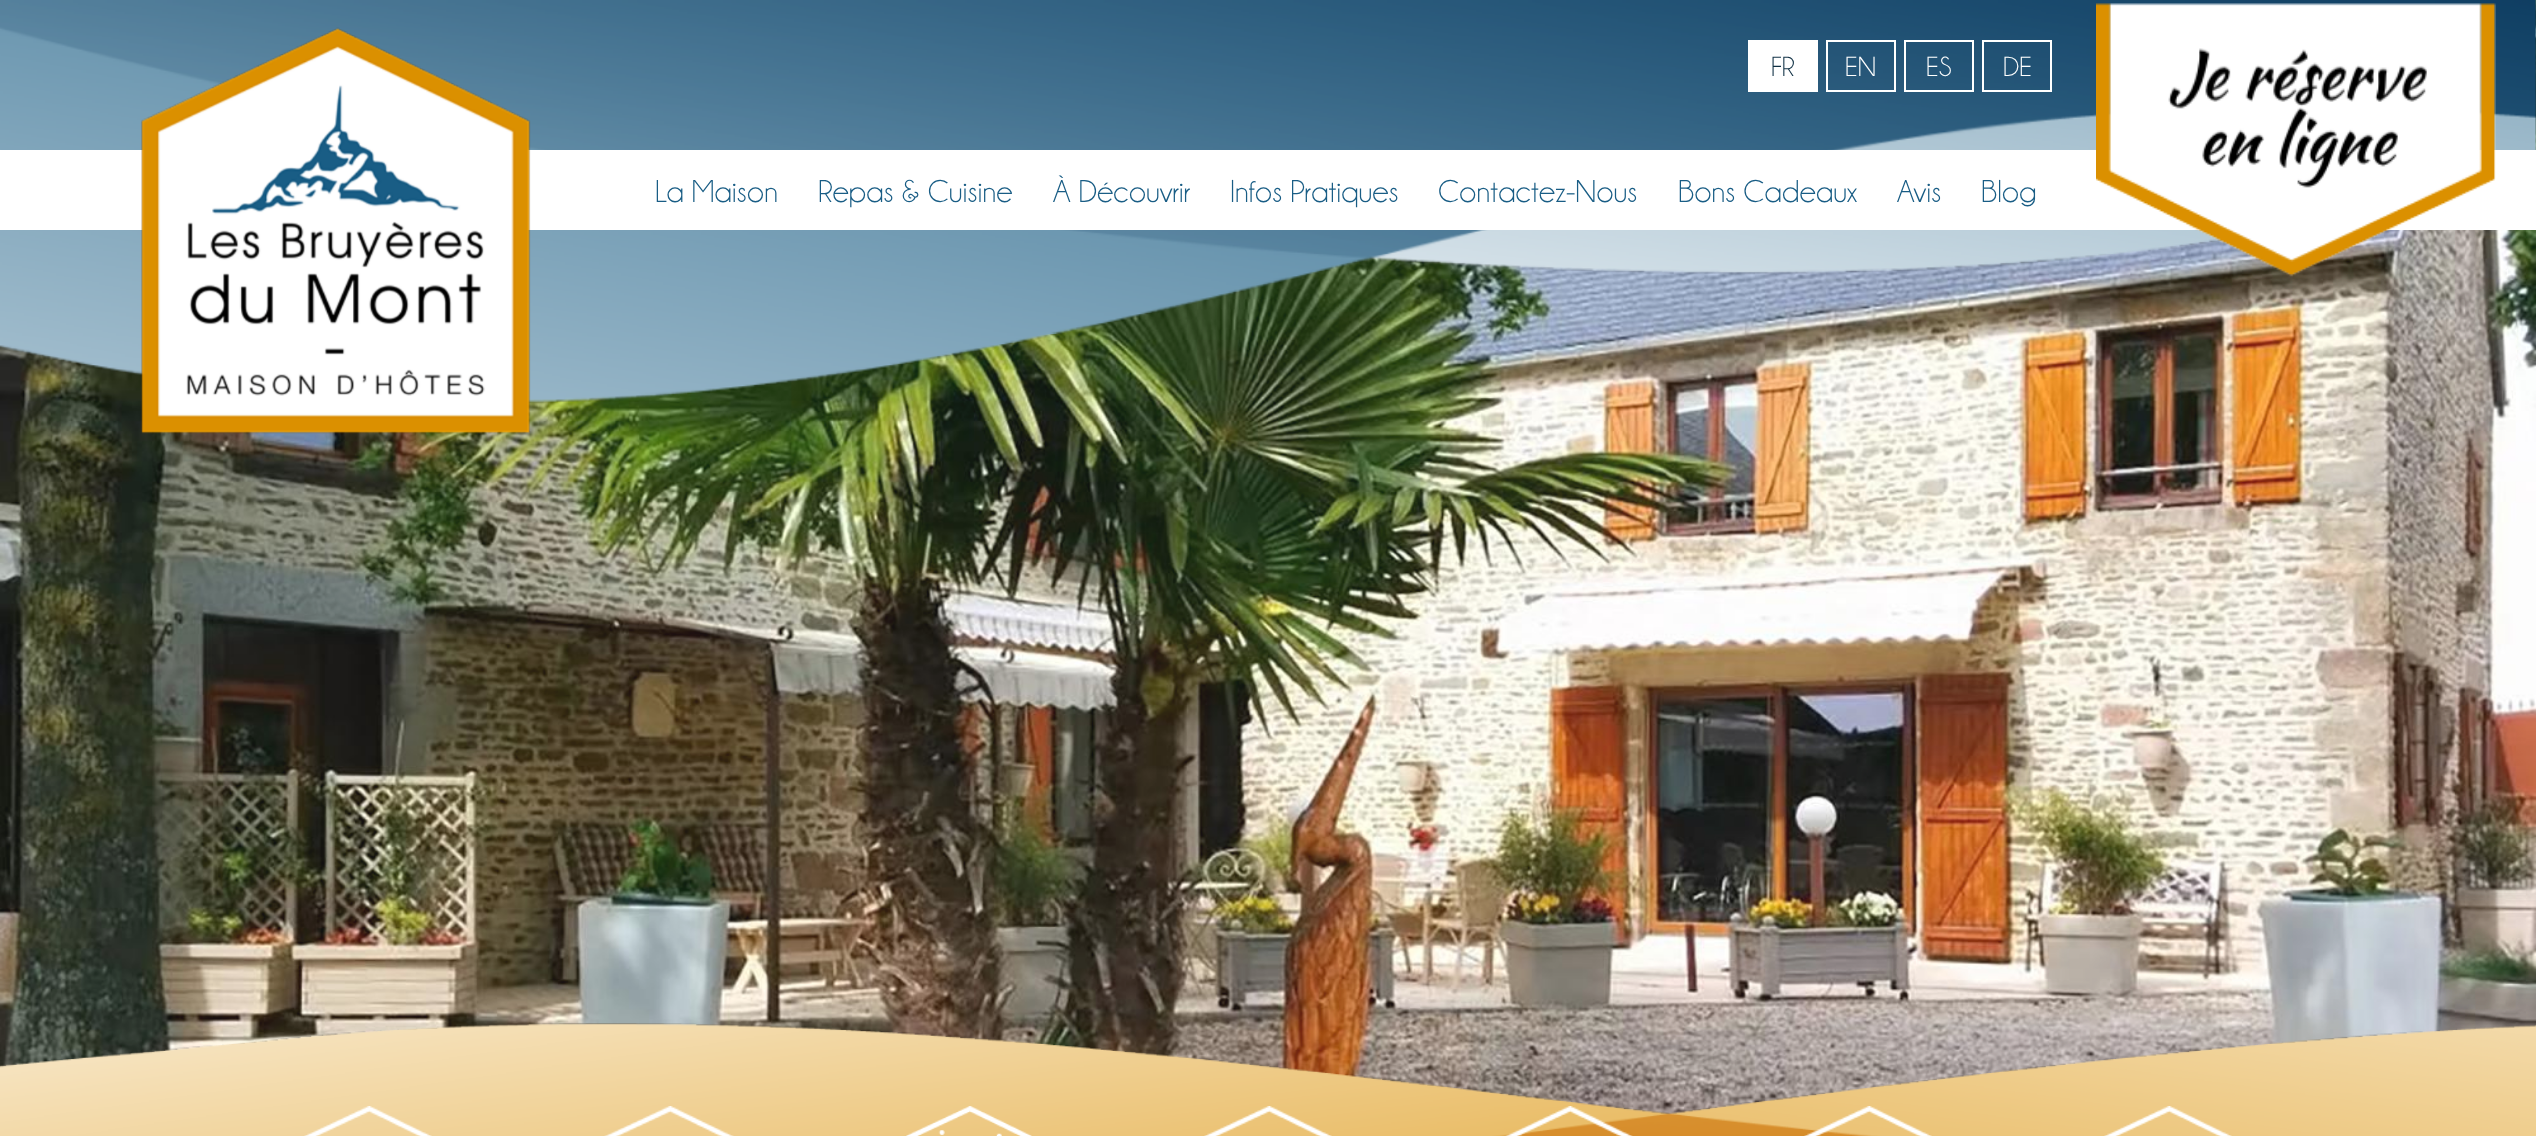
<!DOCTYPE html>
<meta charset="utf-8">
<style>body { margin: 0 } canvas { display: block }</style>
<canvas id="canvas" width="2536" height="1136"></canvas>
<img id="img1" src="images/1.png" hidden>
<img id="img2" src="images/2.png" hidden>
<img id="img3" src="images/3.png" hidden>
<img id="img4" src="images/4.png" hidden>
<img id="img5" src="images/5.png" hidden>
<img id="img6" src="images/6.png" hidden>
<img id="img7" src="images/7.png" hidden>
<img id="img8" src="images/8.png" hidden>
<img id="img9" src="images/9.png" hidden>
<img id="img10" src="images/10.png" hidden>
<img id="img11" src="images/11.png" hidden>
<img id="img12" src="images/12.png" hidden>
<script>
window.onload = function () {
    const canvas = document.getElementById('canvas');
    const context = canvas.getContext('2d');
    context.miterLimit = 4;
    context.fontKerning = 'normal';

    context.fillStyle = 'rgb(255, 255, 255)';
    context.fillRect(0, 0, 2536, 1136);
    context.drawImage(document.getElementById('img1'), 0, 0, 2536, 1115);
    context.drawImage(document.getElementById('img2'), 0, 0, 2536, 404);
    context.fillRect(0, 150, 2536, 80);
    context.drawImage(document.getElementById('img3'), 141, 27, 390, 407);
    context.fillRect(1748, 40, 70, 52);
    context.strokeStyle = 'rgb(255, 255, 255)';
    context.lineWidth = 2;
    context.strokeRect(1827, 41, 68, 50);
    context.strokeRect(1905, 41, 68, 50);
    context.strokeRect(1983, 41, 68, 50);
    context.drawImage(document.getElementById('img4'), 2096, 3, 400, 274);
    context.drawImage(document.getElementById('img5'), 0, 1023, 2536, 113);
    context.drawImage(document.getElementById('img6'), 304, 1106, 128, 30);
    context.drawImage(document.getElementById('img7'), 604, 1106, 130, 30);
    context.drawImage(document.getElementById('img8'), 906, 1106, 126, 30);
    context.drawImage(document.getElementById('img9'), 1204, 1106, 128, 30);
    context.drawImage(document.getElementById('img10'), 1505, 1106, 128, 30);
    context.drawImage(document.getElementById('img11'), 1804, 1106, 128, 30);
    context.drawImage(document.getElementById('img12'), 2104, 1106, 128, 30);
    context.font = '200 28px "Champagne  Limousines"';
    context.fillStyle = 'rgb(14, 47, 67)';
    context.fillText('FR', 1771, 76);
    context.fillStyle = 'rgb(255, 255, 255)';
    context.fillText('EN', 1845, 76);
    context.fillText('ES', 1926, 76);
    context.fillText('DE', 2003, 76);
    context.font = '200 32px "Champagne  Limousines"';
    context.fillStyle = 'rgb(25, 93, 133)';
    context.fillText('La Maison', 655, 202);
    context.fillText('Repas & Cuisine', 818, 202);
    context.fillText('À Découvrir', 1053, 202);
    context.fillText('Infos Pratiques', 1230, 202);
    context.fillText('Contactez-Nous', 1438, 202);
    context.fillText('Bons Cadeaux', 1678, 202);
    context.fillText('Avis', 1897, 202);
    context.fillText('Blog', 1981, 202);
};
</script>
